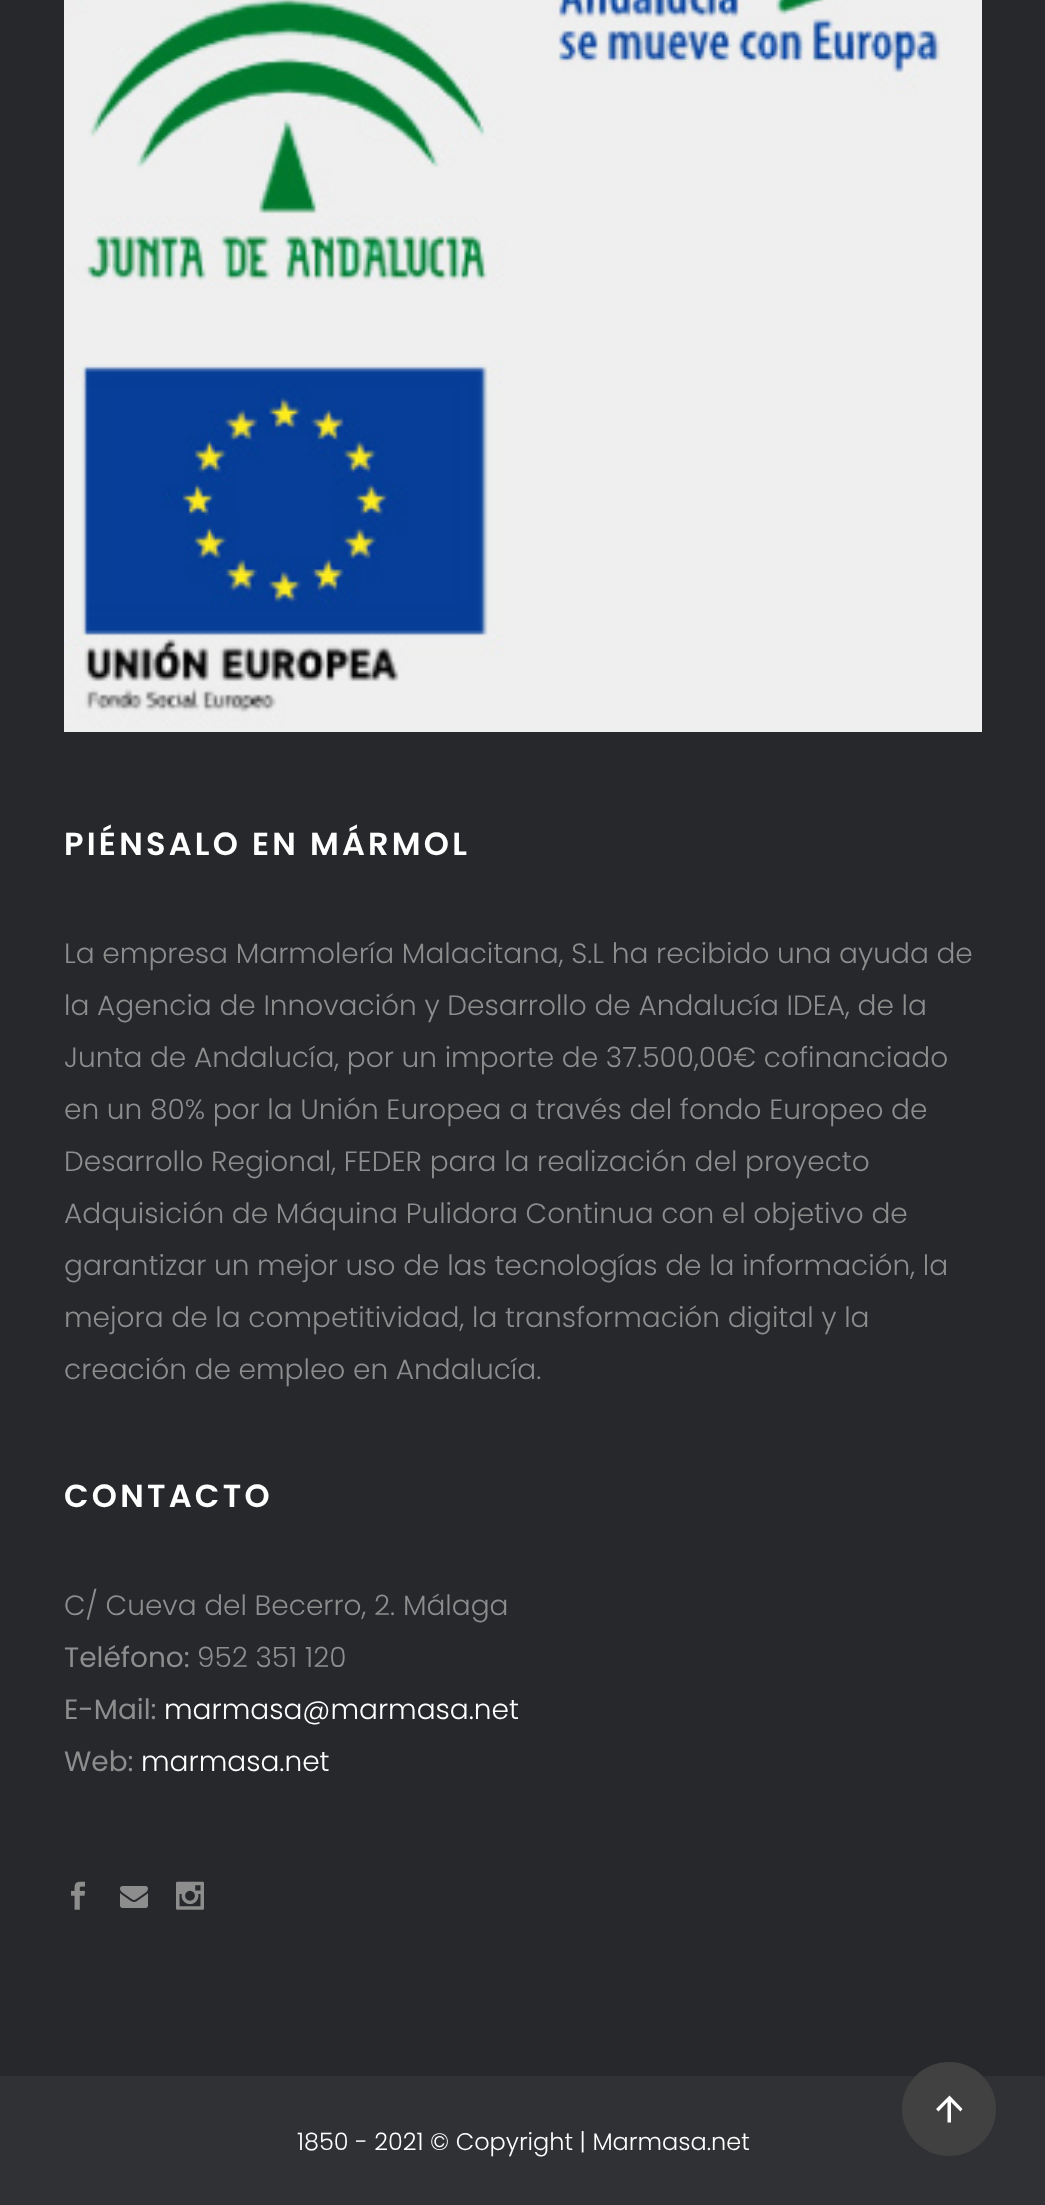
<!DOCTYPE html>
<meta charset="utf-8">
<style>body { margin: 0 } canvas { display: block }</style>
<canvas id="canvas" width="1045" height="2205"></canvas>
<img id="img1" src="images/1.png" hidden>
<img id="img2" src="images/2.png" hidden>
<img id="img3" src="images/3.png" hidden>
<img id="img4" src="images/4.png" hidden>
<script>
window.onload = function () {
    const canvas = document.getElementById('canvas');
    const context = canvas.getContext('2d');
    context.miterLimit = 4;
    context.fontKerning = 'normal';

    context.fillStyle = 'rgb(38, 40, 44)';
    context.fillRect(0, 0, 1045, 2205);
    context.drawImage(document.getElementById('img1'), 64, 0, 918, 732);
    context.drawImage(document.getElementById('img2'), 71, 1881, 14, 29);
    context.drawImage(document.getElementById('img3'), 120, 1886, 28, 22);
    context.drawImage(document.getElementById('img4'), 176, 1881, 28, 29);
    context.fillStyle = 'rgb(48, 49, 53)';
    context.fillRect(0, 2076, 1045, 129);
    context.fillStyle = 'rgb(65, 65, 65)';
    context.beginPath();
    context.arc(949, 2109, 46, 0, 2 * Math.PI);
    context.fill();
    context.strokeStyle = 'rgb(65, 65, 65)';
    context.lineWidth = 2;
    context.stroke();
    context.fillStyle = 'rgb(255, 255, 255)';
    context.beginPath();
    context.moveTo(951, 2122.5);
    context.lineTo(947.5, 2122.5);
    context.lineTo(947.5, 2102);
    context.lineTo(938.5, 2111.5);
    context.lineTo(936, 2109);
    context.lineTo(949.5, 2095.5);
    context.lineTo(962.5, 2109);
    context.lineTo(960.5, 2111.5);
    context.lineTo(951, 2102);
    context.closePath();
    context.fill();
    context.letterSpacing = '3.25px';
    context.font = '600 32px Poppins';
    context.fillText('PIÉNSALO EN MÁRMOL', 64, 855);
    context.letterSpacing = '0px';
    context.font = '300 28px Poppins';
    context.fillStyle = 'rgb(141, 141, 141)';
    context.fillText('La empresa Marmolería Malacitana, S.L ha recibido una ayuda de', 64, 963);
    context.fillText('la Agencia de Innovación y Desarrollo de Andalucía IDEA, de la', 64, 1015);
    context.fillText('Junta de Andalucía, por un importe de 37.500,00€ cofinanciado', 64, 1067);
    context.fillText('en un 80% por la Unión Europea a través del fondo Europeo de', 64, 1119);
    context.fillText('Desarrollo Regional, FEDER para la realización del proyecto', 64, 1171);
    context.fillText('Adquisición de Máquina Pulidora Continua con el objetivo de', 64, 1223);
    context.fillText('garantizar un mejor uso de las tecnologías de la información, la', 64, 1275);
    context.fillText('mejora de la competitividad, la transformación digital y la', 64, 1327);
    context.fillText('creación de empleo en Andalucía.', 64, 1379);
    context.letterSpacing = '3.25px';
    context.font = '600 32px Poppins';
    context.fillStyle = 'rgb(255, 255, 255)';
    context.fillText('CONTACTO', 64, 1507);
    context.letterSpacing = '0px';
    context.font = '300 28px Poppins';
    context.fillStyle = 'rgb(141, 141, 141)';
    context.fillText('C/ Cueva del Becerro, 2. Málaga', 64, 1615);
    context.font = '28px Poppins';
    context.fillText('Teléfono:', 64, 1667);
    context.font = '300 28px Poppins';
    context.fillText('952 351 120', 197, 1667);
    context.font = '28px Poppins';
    context.fillText('E-Mail:', 64, 1719);
    context.font = '300 28px Poppins';
    context.fillStyle = 'rgb(255, 255, 255)';
    context.fillText('marmasa@marmasa.net', 164, 1719);
    context.font = '28px Poppins';
    context.fillStyle = 'rgb(141, 141, 141)';
    context.fillText('Web:', 64, 1771);
    context.font = '300 28px Poppins';
    context.fillStyle = 'rgb(255, 255, 255)';
    context.fillText('marmasa.net', 141, 1771);
    context.font = '300 24px Poppins';
    context.fillText('1850 - 2021 © Copyright | Marmasa.net', 297, 2150);
};
</script>
